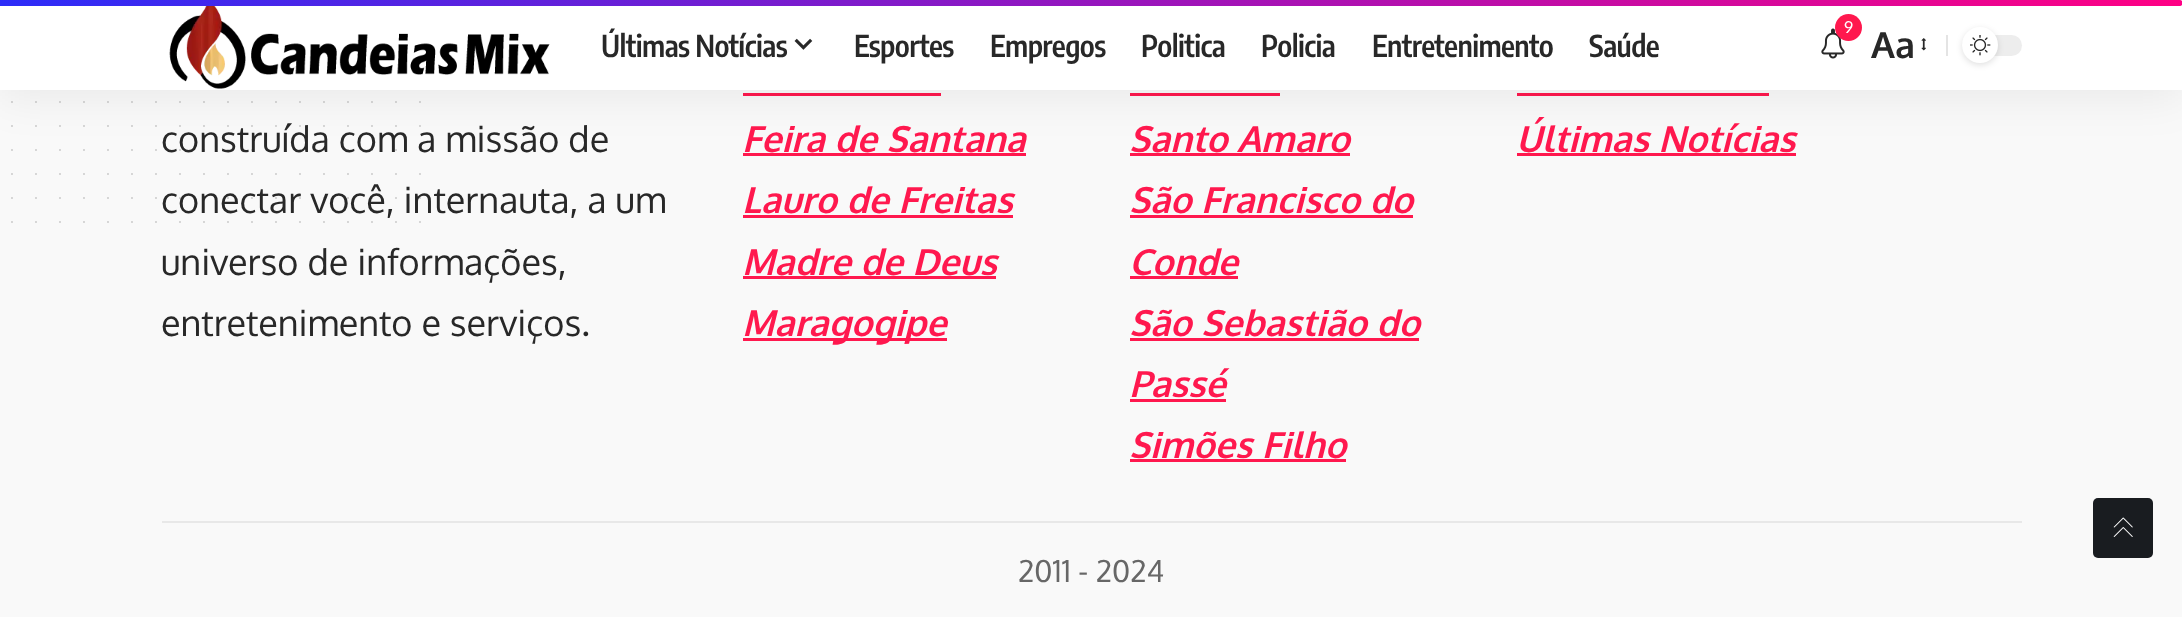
<!DOCTYPE html>
<meta charset="utf-8">
<style>body { margin: 0 } canvas { display: block }</style>
<canvas id="canvas" width="2182" height="617"></canvas>
<img id="img1" src="images/1.png" hidden>
<img id="img2" src="images/2.png" hidden>
<img id="img3" src="images/3.png" hidden>
<img id="img4" src="images/4.png" hidden>
<img id="img5" src="images/5.png" hidden>
<img id="img6" src="images/6.png" hidden>
<script>
window.onload = function () {
    const canvas = document.getElementById('canvas');
    const context = canvas.getContext('2d');
    context.miterLimit = 4;
    context.fontKerning = 'normal';
    let gradient;

    context.fillStyle = 'rgb(249, 249, 249)';
    context.fillRect(0, 0, 2182, 617);
    context.beginPath();
    context.moveTo(12, 102);
    context.lineTo(420.3, 102);
    context.strokeStyle = 'rgb(207, 207, 207)';
    context.lineWidth = 2.2;
    context.lineCap = 'round';
    context.setLineDash([0, 24]);
    context.stroke();
    context.beginPath();
    context.moveTo(12, 126);
    context.lineTo(420.3, 126);
    context.stroke();
    context.beginPath();
    context.moveTo(12, 150);
    context.lineTo(420.3, 150);
    context.stroke();
    context.fillStyle = 'rgb(255, 24, 78)';
    context.fillRect(743, 93, 198, 3);
    context.fillRect(743, 153, 283, 3);
    context.fillRect(1130, 93, 150, 3);
    context.fillRect(1130, 153, 220, 3);
    context.fillRect(1517, 93, 252, 3);
    context.fillRect(1517, 153, 279, 3);
    context.fillStyle = 'rgba(0, 0, 0, 0.07)';
    context.filter = 'blur(22.5px)';
    context.beginPath();
    context.rect(0, 6, 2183, 90);
    context.fill();
    context.filter = 'none';
    context.fillStyle = 'rgb(255, 255, 255)';
    context.fillRect(0, 0, 2182, 90);
    gradient = context.createLinearGradient(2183, 3, 0, 3);
    gradient.addColorStop(0, 'rgb(255, 0, 132)');
    gradient.addColorStop(1, 'rgb(44, 44, 248)');
    context.fillStyle = gradient;
    context.beginPath();
    context.moveTo(0, 0);
    context.lineTo(2180, 0);
    context.bezierCurveTo(2181.5, 0, 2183, 1.5, 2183, 3);
    context.bezierCurveTo(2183, 4.5, 2181.5, 6, 2180, 6);
    context.lineTo(0, 6);
    context.closePath();
    context.fill();
    context.drawImage(document.getElementById('img1'), 169, 6, 381, 83);
    context.drawImage(document.getElementById('img2'), 794, 38, 19, 12);
    context.drawImage(document.getElementById('img3'), 1821, 28, 24, 31);
    context.fillStyle = 'rgb(255, 24, 78)';
    context.beginPath();
    context.arc(1848.5, 27.5, 13.5, 0, 2 * Math.PI);
    context.fill();
    context.fillStyle = 'rgb(228, 228, 228)';
    context.fillRect(1946, 35, 2, 21);
    context.fillStyle = 'rgb(237, 237, 237)';
    context.beginPath();
    context.roundRect(1962, 35, 60, 21, 10.5);
    context.fill();
    context.fillStyle = 'rgba(0, 0, 0, 0.12)';
    context.filter = 'blur(3px)';
    context.beginPath();
    context.roundRect(1962, 29, 36, 36, 18);
    context.fill();
    context.filter = 'none';
    context.fillStyle = 'rgb(255, 255, 255)';
    context.beginPath();
    context.arc(1980, 45, 18, 0, 2 * Math.PI);
    context.fill();
    context.drawImage(document.getElementById('img4'), 1970, 35, 21, 21);
    context.drawImage(document.getElementById('img5'), 1921, 38, 5, 13);
    context.beginPath();
    context.moveTo(12, 174);
    context.lineTo(420.3, 174);
    context.stroke();
    context.beginPath();
    context.moveTo(12, 198);
    context.lineTo(420.3, 198);
    context.stroke();
    context.beginPath();
    context.moveTo(12, 222);
    context.lineTo(420.3, 222);
    context.stroke();
    context.fillStyle = 'rgb(255, 24, 78)';
    context.fillRect(743, 215, 270, 3);
    context.fillRect(743, 276, 253, 3);
    context.fillRect(743, 338, 204, 3);
    context.fillRect(1130, 215, 283, 3);
    context.fillRect(1130, 276, 108, 3);
    context.fillRect(1130, 338, 289, 3);
    context.fillRect(1130, 399, 96, 3);
    context.fillRect(1130, 459, 216, 3);
    context.fillStyle = 'rgb(232, 232, 232)';
    context.fillRect(162, 521, 1860, 2);
    context.fillStyle = 'rgb(25, 28, 32)';
    context.beginPath();
    context.roundRect(2093, 498, 60, 60, 5);
    context.fill();
    context.drawImage(document.getElementById('img6'), 2113, 517, 20, 20);
    context.letterSpacing = '-0.6px';
    context.font = '600 30px Encode Sans Condensed';
    context.fillStyle = 'rgb(40, 40, 40)';
    context.fillText('Últimas Notícias', 601, 57);
    context.fillText('Esportes', 854, 57);
    context.fillText('Empregos', 990, 57);
    context.fillText('Politica', 1141, 57);
    context.fillText('Policia', 1261, 57);
    context.fillText('Entretenimento', 1372, 57);
    context.fillText('Saúde', 1589, 57);
    context.letterSpacing = '0px';
    context.font = '16px Oxygen';
    context.fillStyle = 'rgb(255, 255, 255)';
    context.fillText('9', 1844, 33);
    context.font = 'bold 36px Oxygen';
    context.fillStyle = 'rgb(40, 40, 40)';
    context.fillText('Aa', 1871, 58);
    context.font = '36px Oxygen';
    context.fillText('construída com a missão de', 161, 152);
    context.fillText('conectar você, internauta, a um', 161, 213);
    context.fillText('universo de informações,', 161, 275);
    context.fillText('entretenimento e serviços.', 161, 336);
    context.font = 'italic bold 36px Oxygen';
    context.fillStyle = 'rgb(255, 24, 78)';
    context.fillText('Feira de Santana', 742, 152);
    context.fillText('Lauro de Freitas', 742, 213);
    context.fillText('Madre de Deus', 742, 275);
    context.fillText('Maragogipe', 742, 336);
    context.fillText('Santo Amaro', 1129, 152);
    context.fillText('São Francisco do', 1129, 213);
    context.fillText('Conde', 1129, 275);
    context.fillText('São Sebastião do', 1129, 336);
    context.fillText('Passé', 1129, 397);
    context.fillText('Simões Filho', 1129, 458);
    context.fillText('Últimas Notícias', 1516, 152);
    context.font = '30px Oxygen';
    context.fillStyle = 'rgb(103, 103, 103)';
    context.fillText('2011 - 2024', 1018, 582);
};
</script>
